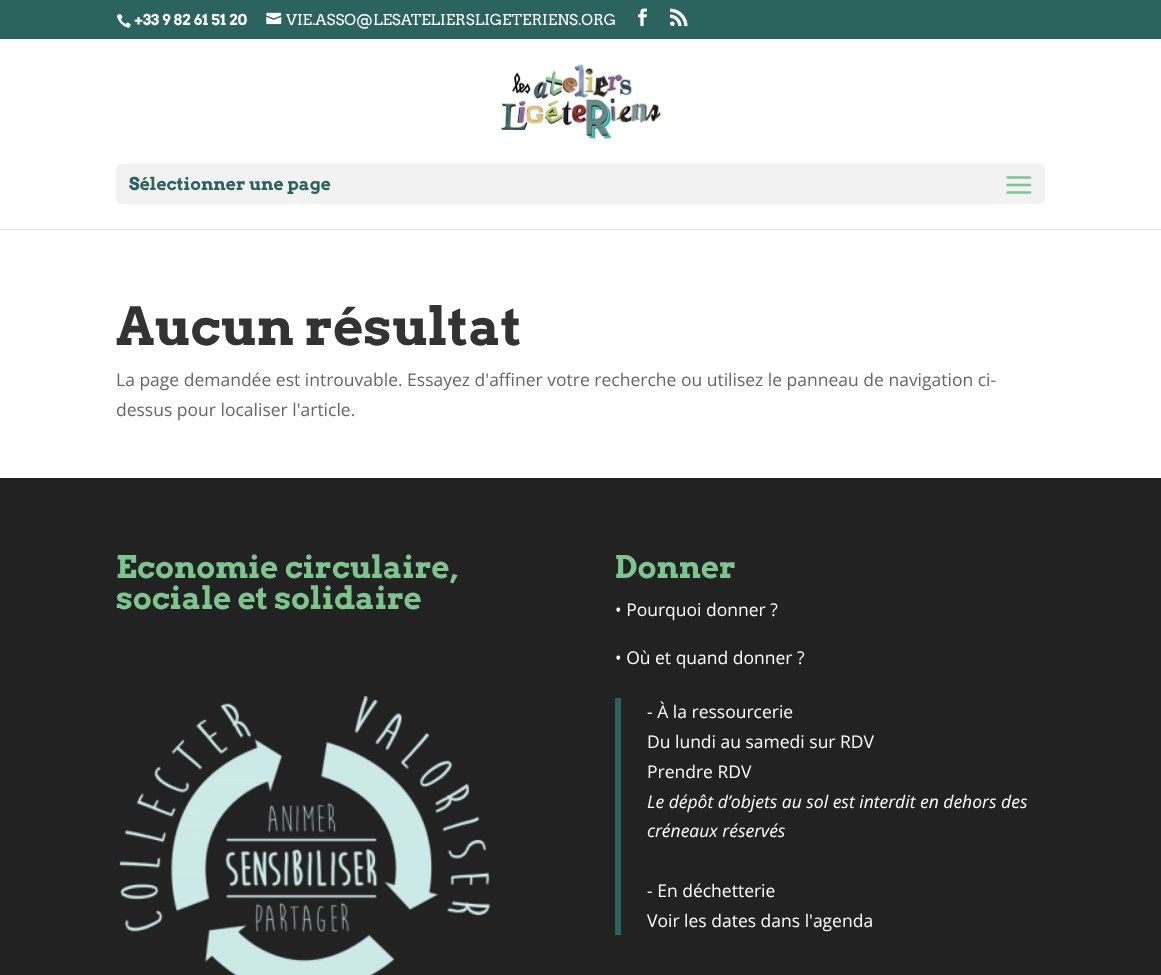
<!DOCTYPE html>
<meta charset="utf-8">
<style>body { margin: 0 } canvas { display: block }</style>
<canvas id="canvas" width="1161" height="975"></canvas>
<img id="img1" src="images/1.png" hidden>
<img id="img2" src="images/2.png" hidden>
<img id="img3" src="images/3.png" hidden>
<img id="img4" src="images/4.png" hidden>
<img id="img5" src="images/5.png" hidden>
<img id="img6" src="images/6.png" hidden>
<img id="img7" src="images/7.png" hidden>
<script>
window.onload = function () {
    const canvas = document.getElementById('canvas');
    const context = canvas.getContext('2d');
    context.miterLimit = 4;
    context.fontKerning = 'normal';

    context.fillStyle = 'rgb(255, 255, 255)';
    context.fillRect(0, 0, 1161, 975);
    context.fillStyle = 'rgb(43, 99, 94)';
    context.fillRect(0, 0, 1161, 39);
    context.drawImage(document.getElementById('img1'), 116, 14, 15, 14);
    context.drawImage(document.getElementById('img2'), 266, 12, 16, 13);
    context.drawImage(document.getElementById('img3'), 638, 8, 9, 19);
    context.drawImage(document.getElementById('img4'), 670, 8, 18, 19);
    context.fillStyle = 'rgb(230, 230, 230)';
    context.fillRect(0, 229, 1161, 1);
    context.drawImage(document.getElementById('img5'), 501, 64, 161, 75);
    context.fillStyle = 'rgb(242, 242, 242)';
    context.beginPath();
    context.roundRect(116, 164, 929, 40, 6);
    context.fill();
    context.drawImage(document.getElementById('img6'), 1006, 176, 26, 18);
    context.fillStyle = 'rgb(34, 34, 34)';
    context.fillRect(0, 478, 1161, 497);
    context.drawImage(document.getElementById('img7'), 119, 696, 372, 279);
    context.fillStyle = 'rgb(43, 99, 94)';
    context.fillRect(615, 698, 6, 237);
    context.font = 'bold 15px Arvo';
    context.fillStyle = 'rgb(255, 255, 255)';
    context.fillText('+33 9 82 61 51 20', 134, 25);
    context.font = '15px Arvo';
    context.fillText('VIE.ASSO@LESATELIERSLIGETERIENS.ORG', 286, 25);
    context.font = 'bold 17.5px Arvo';
    context.fillStyle = 'rgb(43, 99, 94)';
    context.fillText('Sélectionner une page', 129, 190);
    context.font = 'bold 52.5px Arvo';
    context.fillStyle = 'rgb(51, 51, 51)';
    context.fillText('Aucun résultat', 116, 345);
    context.font = '17.5px Open Sans';
    context.fillStyle = 'rgb(102, 102, 102)';
    context.fillText('La page demandée est introuvable. Essayez d\'affiner votre recherche ou utilisez le panneau de navigation ci-', 116, 386);
    context.fillText('dessus pour localiser l\'article.', 116, 416);
    context.font = 'bold 31.25px Arvo';
    context.fillStyle = 'rgb(124, 198, 141)';
    context.fillText('Economie circulaire,', 116, 578);
    context.fillText('sociale et solidaire', 116, 609);
    context.fillText('Donner', 615, 578);
    context.font = '17.5px Open Sans';
    context.fillStyle = 'rgb(255, 255, 255)';
    context.fillText('• Pourquoi donner ?', 615, 616);
    context.fillText('• Où et quand donner ?', 615, 664);
    context.fillText('- À la ressourcerie', 647, 718);
    context.fillText('Du lundi au samedi sur RDV', 647, 748);
    context.fillText('Prendre RDV', 647, 778);
    context.font = 'italic 17.5px Open Sans';
    context.fillText('Le dépôt d’objets au sol est interdit en dehors des', 647, 808);
    context.fillText('créneaux réservés', 647, 837);
    context.font = '17.5px Open Sans';
    context.fillText('- En déchetterie', 647, 897);
    context.fillText('Voir les dates dans l\'agenda', 647, 927);
};
</script>
